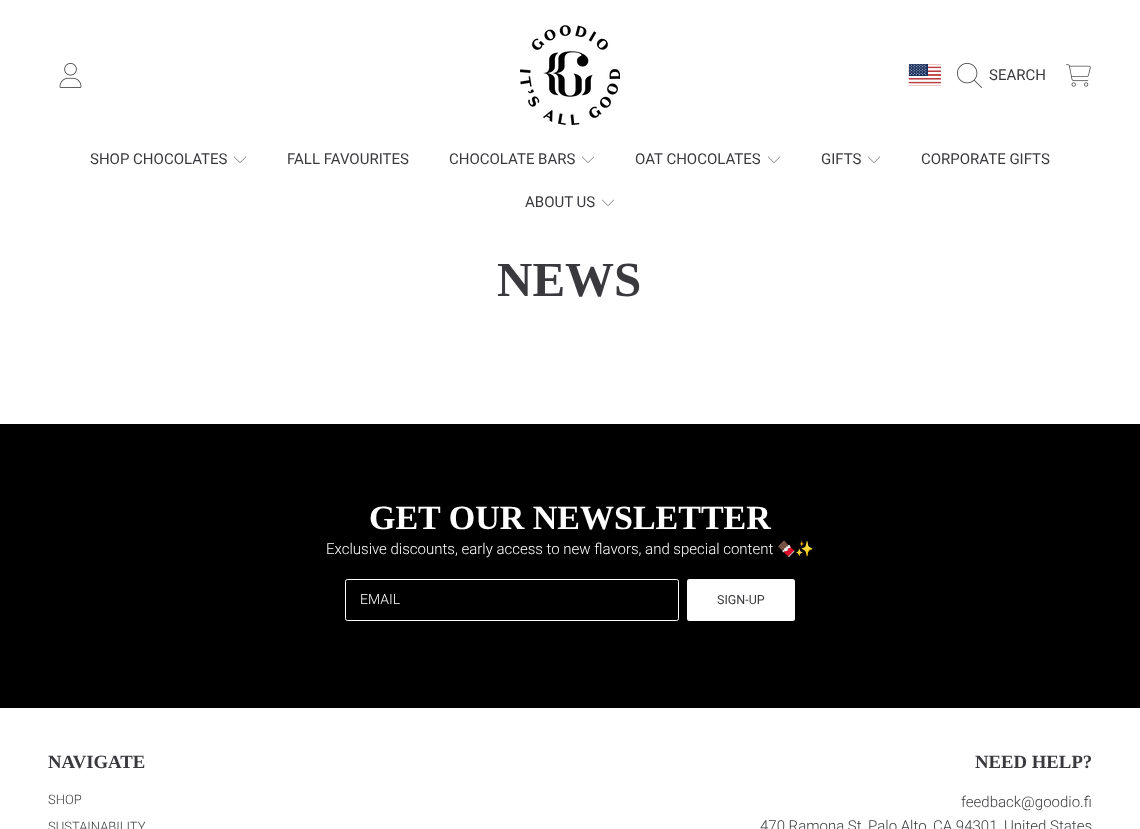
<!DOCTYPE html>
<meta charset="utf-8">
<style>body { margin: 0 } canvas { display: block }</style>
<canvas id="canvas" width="1140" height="829"></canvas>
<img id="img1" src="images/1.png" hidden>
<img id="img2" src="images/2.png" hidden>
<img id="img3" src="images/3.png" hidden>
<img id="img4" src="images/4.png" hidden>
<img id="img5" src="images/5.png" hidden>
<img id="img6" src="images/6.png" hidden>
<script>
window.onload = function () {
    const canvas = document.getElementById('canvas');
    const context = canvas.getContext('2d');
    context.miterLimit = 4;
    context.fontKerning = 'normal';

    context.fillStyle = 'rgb(255, 255, 255)';
    context.fillRect(0, 0, 1140, 829);
    context.drawImage(document.getElementById('img1'), 59, 63, 23, 25);
    context.drawImage(document.getElementById('img2'), 520, 25, 100, 100);
    context.drawImage(document.getElementById('img3'), 908, 64, 33, 22);
    context.drawImage(document.getElementById('img4'), 957, 63, 25, 25);
    context.drawImage(document.getElementById('img5'), 1066, 64, 25, 23);
    context.drawImage(document.getElementById('img6'), 234, 156, 12, 7);
    context.drawImage(document.getElementById('img6'), 582, 156, 12, 7);
    context.drawImage(document.getElementById('img6'), 768, 156, 12, 7);
    context.drawImage(document.getElementById('img6'), 868, 156, 12, 7);
    context.drawImage(document.getElementById('img6'), 602, 199, 12, 7);
    context.fillStyle = 'rgb(0, 0, 0)';
    context.fillRect(0, 424, 1140, 284);
    context.beginPath();
    context.roundRect(345.5, 579.5, 333, 41, 2);
    context.strokeStyle = 'rgb(255, 255, 255)';
    context.stroke();
    context.fillStyle = 'rgb(255, 255, 255)';
    context.beginPath();
    context.roundRect(687, 579, 108, 42, 2.5);
    context.fill();
    context.font = '15px Roboto';
    context.fillStyle = 'rgb(58, 58, 62)';
    context.fillText('SEARCH', 989, 80);
    context.fillText('SHOP CHOCOLATES', 90, 164);
    context.fillText('FALL FAVOURITES', 287, 164);
    context.fillText('CHOCOLATE BARS', 449, 164);
    context.fillText('OAT CHOCOLATES', 635, 164);
    context.fillText('GIFTS', 821, 164);
    context.fillText('CORPORATE GIFTS', 921, 164);
    context.fillText('ABOUT US', 525, 207);
    context.font = 'bold 49px Liberation Serif';
    context.fillText('NEWS', 497, 296);
    context.font = 'bold 34px Liberation Serif';
    context.fillStyle = 'rgb(255, 255, 255)';
    context.fillText('GET OUR NEWSLETTER', 369, 529);
    context.font = '300 15px Roboto';
    context.fillText('Exclusive discounts, early access to new flavors, and special content', 326, 554);
    context.font = '15px Noto Color Emoji';
    context.fillText('🍫✨', 777, 554);
    context.font = '300 14px Roboto';
    context.fillText('EMAIL', 360, 604);
    context.font = '12.5px Roboto';
    context.fillStyle = 'rgb(58, 58, 62)';
    context.fillText('SIGN-UP', 717, 604);
    context.font = 'bold 18.75px Liberation Serif';
    context.fillText('NAVIGATE', 48, 768);
    context.font = '300 13px Roboto';
    context.fillText('SHOP', 48, 804);
    context.fillText('SUSTAINABILITY', 48, 831);
    context.font = 'bold 18.75px Liberation Serif';
    context.fillText('NEED HELP?', 975, 768);
    context.font = '300 15px Roboto';
    context.fillText('feedback@goodio.fi', 961, 807);
    context.fillText('470 Ramona St, Palo Alto, CA 94301, United States', 760, 831);
};
</script>
